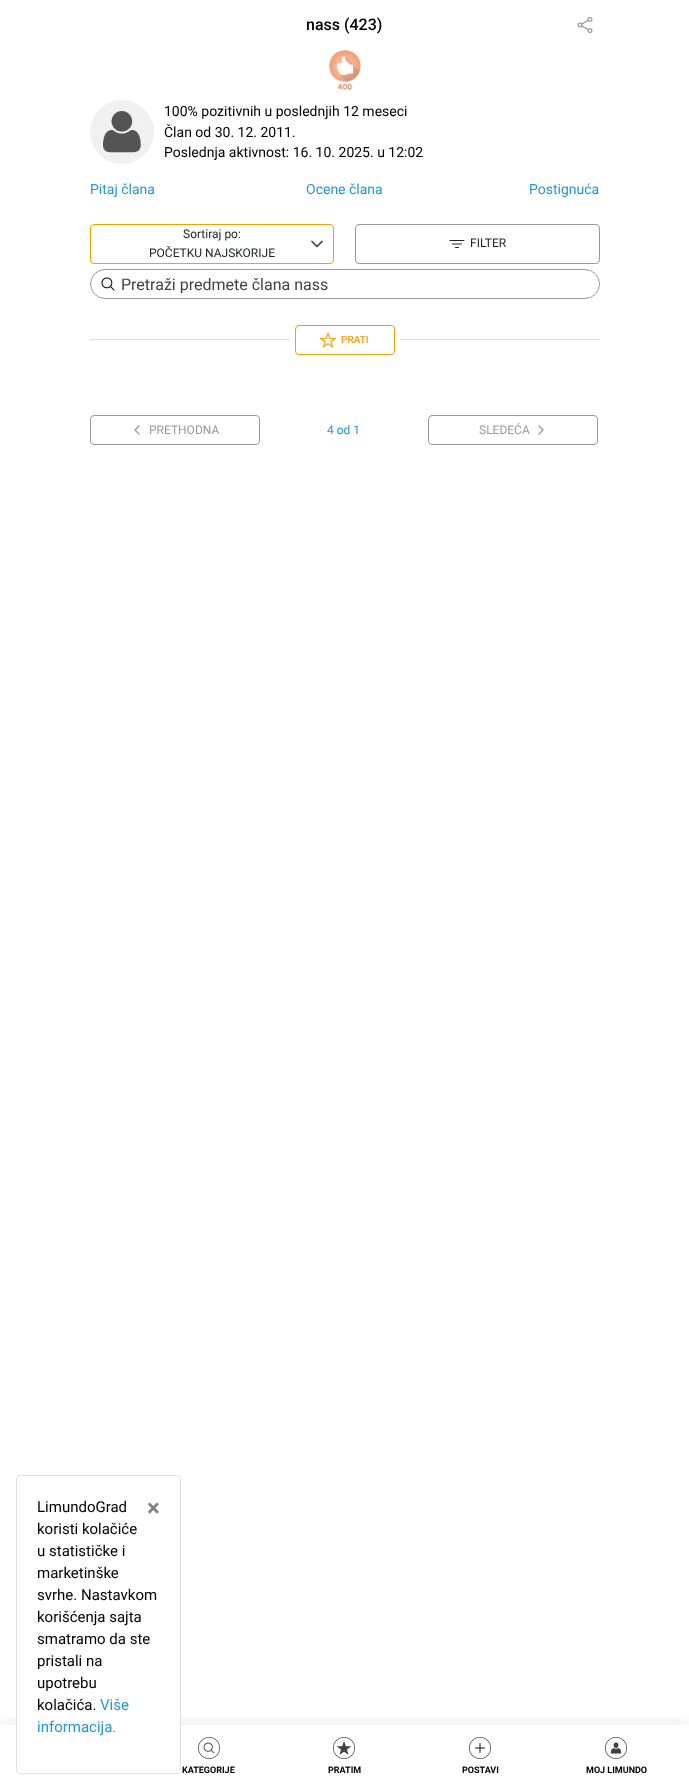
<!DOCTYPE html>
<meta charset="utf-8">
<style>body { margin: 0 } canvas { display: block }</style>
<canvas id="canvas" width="689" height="1790"></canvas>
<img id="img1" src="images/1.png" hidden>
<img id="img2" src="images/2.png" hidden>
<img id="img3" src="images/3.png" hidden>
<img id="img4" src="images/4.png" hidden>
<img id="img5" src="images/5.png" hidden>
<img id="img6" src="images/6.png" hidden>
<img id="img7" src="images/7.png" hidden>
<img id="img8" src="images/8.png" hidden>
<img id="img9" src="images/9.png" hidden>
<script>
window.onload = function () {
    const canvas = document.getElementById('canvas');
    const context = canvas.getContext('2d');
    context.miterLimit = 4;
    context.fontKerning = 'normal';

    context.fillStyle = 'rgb(255, 255, 255)';
    context.fillRect(0, 0, 689, 1790);
    context.drawImage(document.getElementById('img1'), 577, 17, 16, 16);
    context.drawImage(document.getElementById('img2'), 329, 50, 32, 40);
    context.drawImage(document.getElementById('img3'), 90, 100, 64, 64);
    context.beginPath();
    context.roundRect(90.5, 224.5, 243, 39, 3.5);
    context.strokeStyle = 'rgb(255, 153, 0)';
    context.stroke();
    context.beginPath();
    context.moveTo(312, 241.5);
    context.lineTo(317, 246.5);
    context.lineTo(322, 241.5);
    context.strokeStyle = 'rgb(66, 66, 66)';
    context.lineWidth = 1.7;
    context.lineCap = 'round';
    context.lineJoin = 'round';
    context.stroke();
    context.beginPath();
    context.roundRect(355.5, 224.5, 244, 39, 3.5);
    context.strokeStyle = 'rgb(153, 153, 153)';
    context.lineWidth = 1;
    context.lineJoin = 'miter';
    context.stroke();
    context.beginPath();
    context.moveTo(450, 240.5);
    context.lineTo(464, 240.5);
    context.moveTo(452.5, 244);
    context.lineTo(461.5, 244);
    context.moveTo(455.5, 247.5);
    context.lineTo(458.5, 247.5);
    context.strokeStyle = 'rgb(33, 37, 41)';
    context.lineJoin = 'round';
    context.stroke();
    context.beginPath();
    context.roundRect(90.5, 269.5, 509, 29, 14.5);
    context.strokeStyle = 'rgb(153, 153, 153)';
    context.lineJoin = 'miter';
    context.stroke();
    context.drawImage(document.getElementById('img4'), 101, 277, 14, 14);
    context.fillStyle = 'rgb(221, 221, 221)';
    context.fillRect(90, 339, 510, 1);
    context.fillStyle = 'rgb(255, 255, 255)';
    context.fillRect(290, 339, 110, 1);
    context.beginPath();
    context.roundRect(295.5, 325.5, 99, 29, 3.5);
    context.strokeStyle = 'rgb(255, 153, 0)';
    context.stroke();
    context.drawImage(document.getElementById('img5'), 320, 332, 16, 16);
    context.beginPath();
    context.roundRect(90.5, 415.5, 169, 29, 3.5);
    context.strokeStyle = 'rgb(153, 153, 153)';
    context.stroke();
    context.beginPath();
    context.moveTo(139, 426);
    context.lineTo(135, 430);
    context.lineTo(139, 434);
    context.lineWidth = 1.3;
    context.lineJoin = 'round';
    context.stroke();
    context.beginPath();
    context.roundRect(428.5, 415.5, 169, 29, 3.5);
    context.lineWidth = 1;
    context.lineJoin = 'miter';
    context.stroke();
    context.beginPath();
    context.moveTo(539, 426);
    context.lineTo(543, 430);
    context.lineTo(539, 434);
    context.lineWidth = 1.3;
    context.lineJoin = 'round';
    context.stroke();
    context.save();
    context.beginPath();
    context.rect(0, 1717, 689, 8);
    context.clip();
    context.fillStyle = 'rgba(0, 0, 0, 0.1)';
    context.filter = 'blur(10px)';
    context.beginPath();
    context.rect(0, 1725, 689, 65);
    context.fill();
    context.filter = 'none';
    context.restore();
    context.beginPath();
    context.roundRect(16.5, 1475.5, 164, 298, 3.5);
    context.fill();
    context.strokeStyle = 'rgb(223, 223, 223)';
    context.lineWidth = 1;
    context.lineJoin = 'miter';
    context.stroke();
    context.drawImage(document.getElementById('img6'), 198, 1737, 22, 22);
    context.drawImage(document.getElementById('img7'), 333, 1737, 22, 22);
    context.drawImage(document.getElementById('img8'), 469, 1737, 22, 22);
    context.drawImage(document.getElementById('img9'), 605, 1737, 22, 22);
    context.font = '500 16px Roboto';
    context.fillStyle = 'rgb(0, 0, 0)';
    context.fillText('nass (423)', 306, 30);
    context.font = '14px Roboto';
    context.fillText('100% pozitivnih u poslednjih 12 meseci', 164, 116);
    context.fillText('Član od 30. 12. 2011.', 164, 137);
    context.fillText('Poslednja aktivnost: 16. 10. 2025. u 12:02', 164, 157);
    context.fillStyle = 'rgb(32, 152, 215)';
    context.fillText('Pitaj člana', 90, 194);
    context.fillText('Ocene člana', 306, 194);
    context.fillText('Postignuća', 529, 194);
    context.font = '12px Roboto';
    context.fillStyle = 'rgb(33, 37, 41)';
    context.fillText('Sortiraj po:', 183, 238);
    context.fillText('POČETKU NAJSKORIJE', 149, 257);
    context.fillText('FILTER', 470, 247);
    context.font = '16px Roboto';
    context.fillStyle = 'rgb(66, 66, 66)';
    context.fillText('Pretraži predmete člana nass', 121, 290);
    context.font = '500 10px Roboto';
    context.fillStyle = 'rgb(255, 153, 0)';
    context.fillText('PRATI', 341, 343);
    context.font = '12px Roboto';
    context.fillStyle = 'rgb(153, 153, 153)';
    context.fillText('PRETHODNA', 149, 434);
    context.fillStyle = 'rgb(32, 152, 215)';
    context.fillText('4 od 1', 327, 434);
    context.fillStyle = 'rgb(153, 153, 153)';
    context.fillText('SLEDEĆA', 479, 434);
    context.font = '15px Roboto';
    context.fillStyle = 'rgb(0, 0, 0)';
    context.fillText('LimundoGrad', 37, 1512);
    context.fillText('koristi kolačiće', 37, 1534);
    context.fillText('u statističke i', 37, 1556);
    context.fillText('marketinške', 37, 1578);
    context.fillText('svrhe. Nastavkom', 37, 1600);
    context.fillText('korišćenja sajta', 37, 1622);
    context.fillText('smatramo da ste', 37, 1644);
    context.fillText('pristali na', 37, 1666);
    context.fillText('upotrebu', 37, 1688);
    context.fillText('kolačića.', 37, 1710);
    context.fillStyle = 'rgb(32, 152, 215)';
    context.fillText('Više', 100, 1710);
    context.fillText('informacija.', 37, 1732);
    context.font = 'bold 24px Roboto';
    context.fillStyle = 'rgb(128, 128, 128)';
    context.fillText('×', 147, 1516);
    context.font = 'bold 9px Roboto';
    context.fillStyle = 'rgb(0, 0, 0)';
    context.fillText('KATEGORIJE', 182, 1773);
    context.fillText('PRATIM', 328, 1773);
    context.fillText('POSTAVI', 462, 1773);
    context.fillText('MOJ LIMUNDO', 586, 1773);
};
</script>
